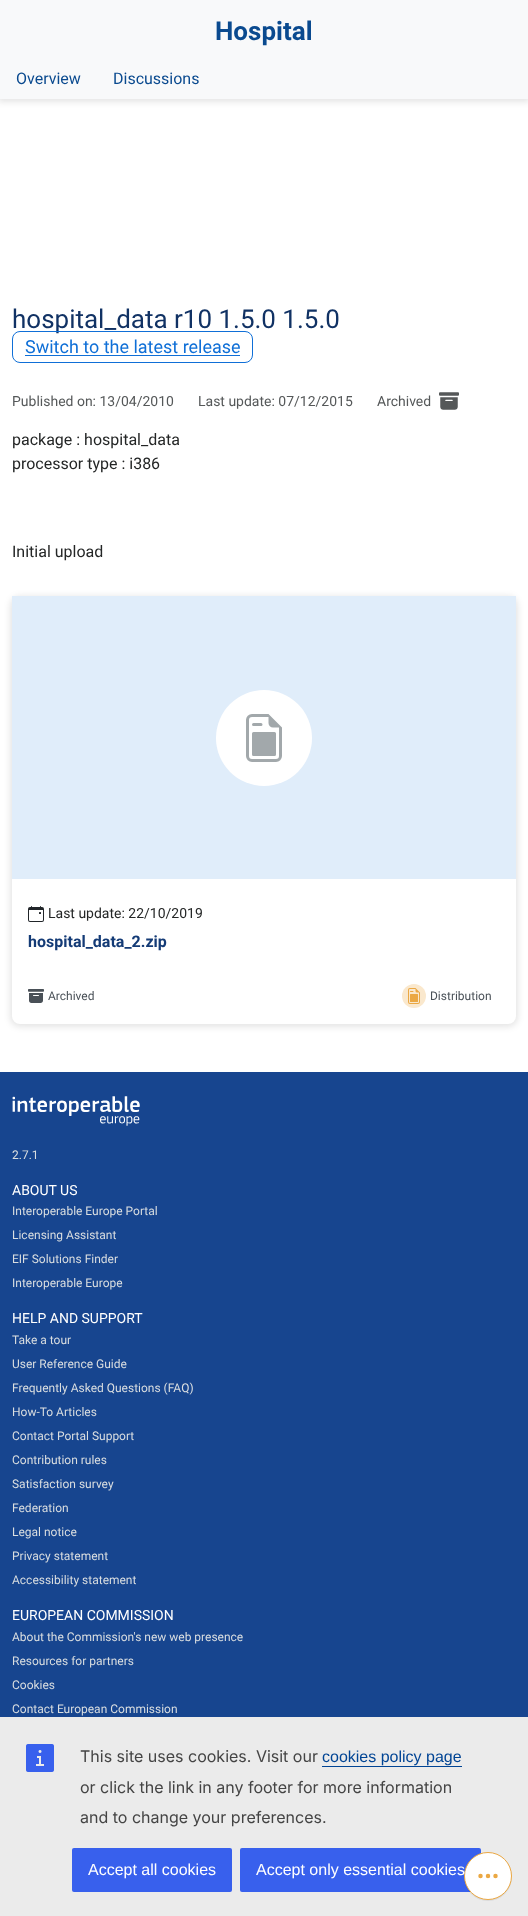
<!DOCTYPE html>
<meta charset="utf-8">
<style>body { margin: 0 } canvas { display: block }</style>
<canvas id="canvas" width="528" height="1916"></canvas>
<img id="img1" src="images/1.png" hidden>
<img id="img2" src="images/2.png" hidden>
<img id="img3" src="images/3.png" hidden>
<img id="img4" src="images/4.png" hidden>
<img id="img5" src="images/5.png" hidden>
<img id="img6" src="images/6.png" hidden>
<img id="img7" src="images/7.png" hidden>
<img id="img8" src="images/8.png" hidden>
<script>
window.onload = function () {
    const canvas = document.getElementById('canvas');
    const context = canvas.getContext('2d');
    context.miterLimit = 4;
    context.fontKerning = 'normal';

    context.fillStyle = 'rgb(255, 255, 255)';
    context.fillRect(0, 0, 528, 1916);
    context.fillStyle = 'rgba(0, 0, 0, 0.1)';
    context.filter = 'blur(3px)';
    context.beginPath();
    context.rect(-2, 0, 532, 102);
    context.fill();
    context.filter = 'none';
    context.fillStyle = 'rgb(248, 249, 250)';
    context.fillRect(0, 0, 528, 99);
    context.drawImage(document.getElementById('img1'), 439, 392, 20, 18);
    context.fillStyle = 'rgba(0, 0, 0, 0.1)';
    context.filter = 'blur(3px)';
    context.beginPath();
    context.roundRect(10, 596, 508, 431, 10);
    context.fill();
    context.filter = 'none';
    context.fillStyle = 'rgb(255, 255, 255)';
    context.beginPath();
    context.roundRect(12, 596, 504, 428, 8);
    context.fill();
    context.fillStyle = 'rgb(224, 237, 250)';
    context.fillRect(12, 596, 504, 283);
    context.fillStyle = 'rgb(255, 255, 255)';
    context.beginPath();
    context.arc(264, 738, 48, 0, 2 * Math.PI);
    context.fill();
    context.drawImage(document.getElementById('img2'), 246, 714, 36, 48);
    context.drawImage(document.getElementById('img3'), 28, 906, 16, 16);
    context.drawImage(document.getElementById('img4'), 28, 989, 16, 14);
    context.fillStyle = 'rgb(250, 232, 205)';
    context.beginPath();
    context.arc(414, 996, 12, 0, 2 * Math.PI);
    context.fill();
    context.drawImage(document.getElementById('img5'), 408, 988, 12, 16);
    context.fillStyle = 'rgb(235, 235, 235)';
    context.fillRect(0, 1717, 528, 199);
    context.fillStyle = 'rgb(56, 96, 237)';
    context.beginPath();
    context.roundRect(240, 1848, 241, 44, 2);
    context.fill();
    context.fillStyle = 'rgba(0, 0, 0, 0.07)';
    context.filter = 'blur(0.5px)';
    context.beginPath();
    context.roundRect(464, 1853, 48, 48, 24);
    context.fill();
    context.filter = 'none';
    context.fillStyle = 'rgb(255, 255, 255)';
    context.beginPath();
    context.arc(488, 1876, 23.5, 0, 2 * Math.PI);
    context.fill();
    context.strokeStyle = 'rgb(235, 168, 67)';
    context.stroke();
    context.drawImage(document.getElementById('img6'), 478, 1873, 20, 6);
    context.fillStyle = 'rgb(23, 69, 143)';
    context.fillRect(0, 1072, 528, 645);
    context.drawImage(document.getElementById('img7'), 12, 1096, 128, 30);
    context.drawImage(document.getElementById('img8'), 26, 1744, 28, 28);
    context.fillStyle = 'rgb(0, 68, 148)';
    context.fillRect(322, 1766, 140, 1);
    context.fillStyle = 'rgb(56, 96, 237)';
    context.beginPath();
    context.roundRect(72, 1848, 160, 44, 2);
    context.fill();
    context.font = 'bold 26px Roboto';
    context.fillStyle = 'rgb(10, 74, 143)';
    context.fillText('Hospital', 215, 40);
    context.font = '16px Roboto';
    context.fillText('Overview', 16, 84);
    context.fillText('Discussions', 113, 84);
    context.font = '26px Roboto';
    context.fillStyle = 'rgb(17, 50, 100)';
    context.fillText('hospital_data r10 1.5.0 1.5.0', 12, 328);
    context.beginPath();
    context.roundRect(12.5, 331.5, 240, 31, 7.5);
    context.strokeStyle = 'rgb(15, 111, 215)';
    context.stroke();
    context.font = '18px Roboto';
    context.fillStyle = 'rgb(15, 111, 215)';
    context.fillText('Switch to the latest release', 25, 353);
    context.fillRect(25, 355, 215, 1);
    context.font = '14px Roboto';
    context.fillStyle = 'rgb(85, 88, 89)';
    context.fillText('Published on: 13/04/2010', 12, 406);
    context.fillText('Last update: 07/12/2015', 198, 406);
    context.fillText('Archived', 377, 406);
    context.font = '16px Roboto';
    context.fillStyle = 'rgb(36, 38, 38)';
    context.fillText('package : hospital_data', 12, 445);
    context.fillText('processor type : i386', 12, 469);
    context.fillText('Initial upload', 12, 557);
    context.font = '14px Roboto';
    context.fillText('Last update: 22/10/2019', 48, 918);
    context.font = 'bold 16px Roboto';
    context.fillStyle = 'rgb(20, 59, 118)';
    context.fillText('hospital_data_2.zip', 28, 947);
    context.font = '12px Roboto';
    context.fillStyle = 'rgb(73, 80, 87)';
    context.fillText('Archived', 48, 1000);
    context.fillText('Distribution', 430, 1000);
    context.fillStyle = 'rgb(218, 222, 224)';
    context.fillText('2.7.1', 12, 1159);
    context.font = '14px Roboto';
    context.fillStyle = 'rgb(255, 255, 255)';
    context.fillText('ABOUT US', 12, 1195);
    context.font = '12px Roboto';
    context.fillStyle = 'rgb(218, 222, 224)';
    context.fillText('Interoperable Europe Portal', 12, 1215);
    context.fillText('Licensing Assistant', 12, 1239);
    context.fillText('EIF Solutions Finder', 12, 1263);
    context.fillText('Interoperable Europe', 12, 1287);
    context.font = '14px Roboto';
    context.fillStyle = 'rgb(255, 255, 255)';
    context.fillText('HELP AND SUPPORT', 12, 1323);
    context.font = '12px Roboto';
    context.fillStyle = 'rgb(218, 222, 224)';
    context.fillText('Take a tour', 12, 1344);
    context.fillText('User Reference Guide', 12, 1368);
    context.fillText('Frequently Asked Questions (FAQ)', 12, 1392);
    context.fillText('How-To Articles', 12, 1416);
    context.fillText('Contact Portal Support', 12, 1440);
    context.fillText('Contribution rules', 12, 1464);
    context.fillText('Satisfaction survey', 12, 1488);
    context.fillText('Federation', 12, 1512);
    context.fillText('Legal notice', 12, 1536);
    context.fillText('Privacy statement', 12, 1560);
    context.fillText('Accessibility statement', 12, 1584);
    context.font = '14px Roboto';
    context.fillStyle = 'rgb(255, 255, 255)';
    context.fillText('EUROPEAN COMMISSION', 12, 1620);
    context.font = '12px Roboto';
    context.fillStyle = 'rgb(218, 222, 224)';
    context.fillText('About the Commission\'s new web presence', 12, 1641);
    context.fillText('Resources for partners', 12, 1665);
    context.fillText('Cookies', 12, 1689);
    context.fillText('Contact European Commission', 12, 1713);
    context.font = '16px Inter';
    context.fillStyle = 'rgb(68, 68, 68)';
    context.fillText('This site uses cookies. Visit our', 80, 1762);
    context.font = '16px Liberation Sans';
    context.fillStyle = 'rgb(0, 68, 148)';
    context.fillText('cookies policy page', 322, 1762);
    context.font = '16px Inter';
    context.fillStyle = 'rgb(68, 68, 68)';
    context.fillText('or click the link in any footer for more information', 80, 1793);
    context.fillText('and to change your preferences.', 80, 1823);
    context.font = '16px Liberation Sans';
    context.fillStyle = 'rgb(255, 255, 255)';
    context.fillText('Accept all cookies', 88, 1875);
    context.fillText('Accept only essential cookies', 256, 1875);
};
</script>
